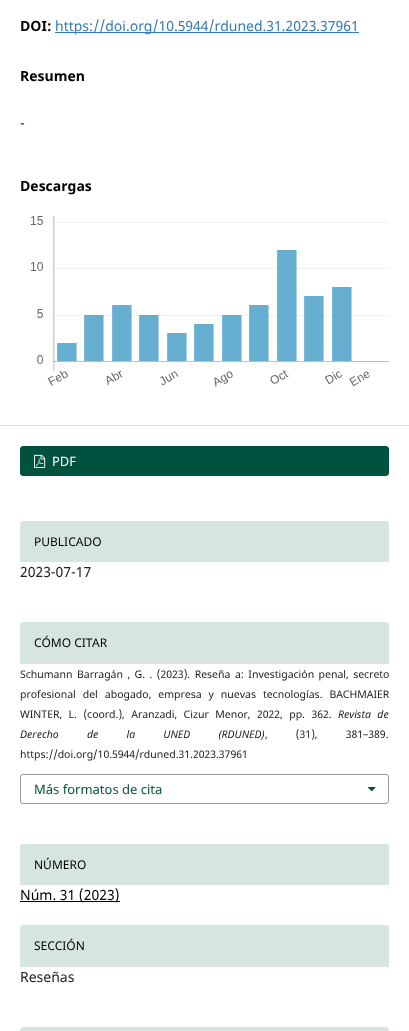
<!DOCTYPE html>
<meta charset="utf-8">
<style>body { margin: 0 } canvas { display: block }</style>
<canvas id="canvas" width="409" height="1031"></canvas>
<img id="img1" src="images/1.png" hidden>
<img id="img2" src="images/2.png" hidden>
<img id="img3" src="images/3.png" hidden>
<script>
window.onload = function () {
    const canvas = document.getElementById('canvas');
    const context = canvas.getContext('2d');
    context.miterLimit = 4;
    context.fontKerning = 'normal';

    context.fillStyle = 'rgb(255, 255, 255)';
    context.fillRect(0, 0, 409, 1031);
    context.fillStyle = 'rgb(51, 122, 183)';
    context.fillRect(55, 32, 304, 1);
    context.drawImage(document.getElementById('img1'), 30, 216, 359, 171);
    context.fillStyle = 'rgb(221, 221, 221)';
    context.fillRect(0, 425, 409, 1);
    context.fillStyle = 'rgb(0, 82, 62)';
    context.beginPath();
    context.roundRect(20.5, 446.5, 368, 29, 2.5);
    context.fill();
    context.strokeStyle = 'rgb(0, 82, 62)';
    context.stroke();
    context.drawImage(document.getElementById('img2'), 34, 454, 12, 14);
    context.fillStyle = 'rgb(214, 229, 226)';
    context.beginPath();
    context.roundRect(20, 521, 369, 41, [3, 3, 0, 0]);
    context.fill();
    context.beginPath();
    context.roundRect(20, 622, 369, 42, [3, 3, 0, 0]);
    context.fill();
    context.beginPath();
    context.roundRect(20.5, 774.5, 368, 29, 2.5);
    context.strokeStyle = 'rgb(153, 153, 153)';
    context.stroke();
    context.drawImage(document.getElementById('img3'), 368, 787, 8, 5);
    context.beginPath();
    context.roundRect(20, 844, 369, 41, [3, 3, 0, 0]);
    context.fill();
    context.fillStyle = 'rgb(0, 0, 0)';
    context.fillRect(20, 901, 100, 1);
    context.fillStyle = 'rgb(214, 229, 226)';
    context.beginPath();
    context.roundRect(20, 925, 369, 42, [3, 3, 0, 0]);
    context.fill();
    context.beginPath();
    context.moveTo(23, 1027);
    context.lineTo(386, 1027);
    context.bezierCurveTo(387.5, 1027, 389, 1028.5, 389, 1030);
    context.lineTo(389, 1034);
    context.lineTo(20, 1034);
    context.lineTo(20, 1030);
    context.bezierCurveTo(20, 1028.5, 21.5, 1027, 23, 1027);
    context.closePath();
    context.fill();
    context.font = 'bold 14px Noto Sans';
    context.fillStyle = 'rgb(0, 0, 0)';
    context.fillText('DOI:', 20, 31);
    context.font = '14px Noto Sans';
    context.fillStyle = 'rgb(51, 122, 183)';
    context.fillText('https://doi.org/10.5944/rduned.31.2023.37961', 55, 31);
    context.font = 'bold 14px Noto Sans';
    context.fillStyle = 'rgb(0, 0, 0)';
    context.fillText('Resumen', 20, 81);
    context.font = '14px Noto Sans';
    context.fillStyle = 'rgb(33, 33, 33)';
    context.fillText('-', 20, 128);
    context.font = 'bold 14px Noto Sans';
    context.fillStyle = 'rgb(0, 0, 0)';
    context.fillText('Descargas', 20, 191);
    context.font = '13px Noto Sans';
    context.fillStyle = 'rgb(255, 255, 255)';
    context.fillText('PDF', 52, 466);
    context.font = '12px Noto Sans';
    context.fillStyle = 'rgb(0, 0, 0)';
    context.fillText('PUBLICADO', 34, 546);
    context.font = '14px Noto Sans';
    context.fillStyle = 'rgb(33, 33, 33)';
    context.fillText('2023-07-17', 20, 577);
    context.font = '12px Noto Sans';
    context.fillStyle = 'rgb(0, 0, 0)';
    context.fillText('CÓMO CITAR', 34, 647);
    context.wordSpacing = '1.75px';
    context.font = '10.5px Noto Sans';
    context.fillStyle = 'rgb(33, 33, 33)';
    context.fillText('Schumann Barragán , G. . (2023). Reseña a: Investigación penal, secreto', 20, 678);
    context.wordSpacing = '4.25px';
    context.fillText('profesional del abogado, empresa y nuevas tecnologías. BACHMAIER', 20, 698);
    context.wordSpacing = '3.75px';
    context.fillText('WINTER, L. (coord.), Aranzadi, Cizur Menor, 2022, pp. 362.', 20, 718);
    context.font = 'italic 10.5px Noto Sans';
    context.fillText('Revista de', 338, 718);
    context.wordSpacing = '25.5px';
    context.fillText('Derecho de la UNED (RDUNED)', 20, 738);
    context.font = '10.5px Noto Sans';
    context.fillText(', (31), 381–389.', 265, 738);
    context.wordSpacing = '0px';
    context.fillText('https://doi.org/10.5944/rduned.31.2023.37961', 20, 758);
    context.font = '13px Noto Sans';
    context.fillStyle = 'rgb(0, 82, 62)';
    context.fillText('Más formatos de cita', 34, 794);
    context.font = '12px Noto Sans';
    context.fillStyle = 'rgb(0, 0, 0)';
    context.fillText('NÚMERO', 34, 869);
    context.font = '14px Noto Sans';
    context.fillText('Núm. 31 (2023)', 20, 900);
    context.font = '12px Noto Sans';
    context.fillText('SECCIÓN', 34, 950);
    context.font = '14px Noto Sans';
    context.fillStyle = 'rgb(33, 33, 33)';
    context.fillText('Reseñas', 20, 982);
};
</script>
